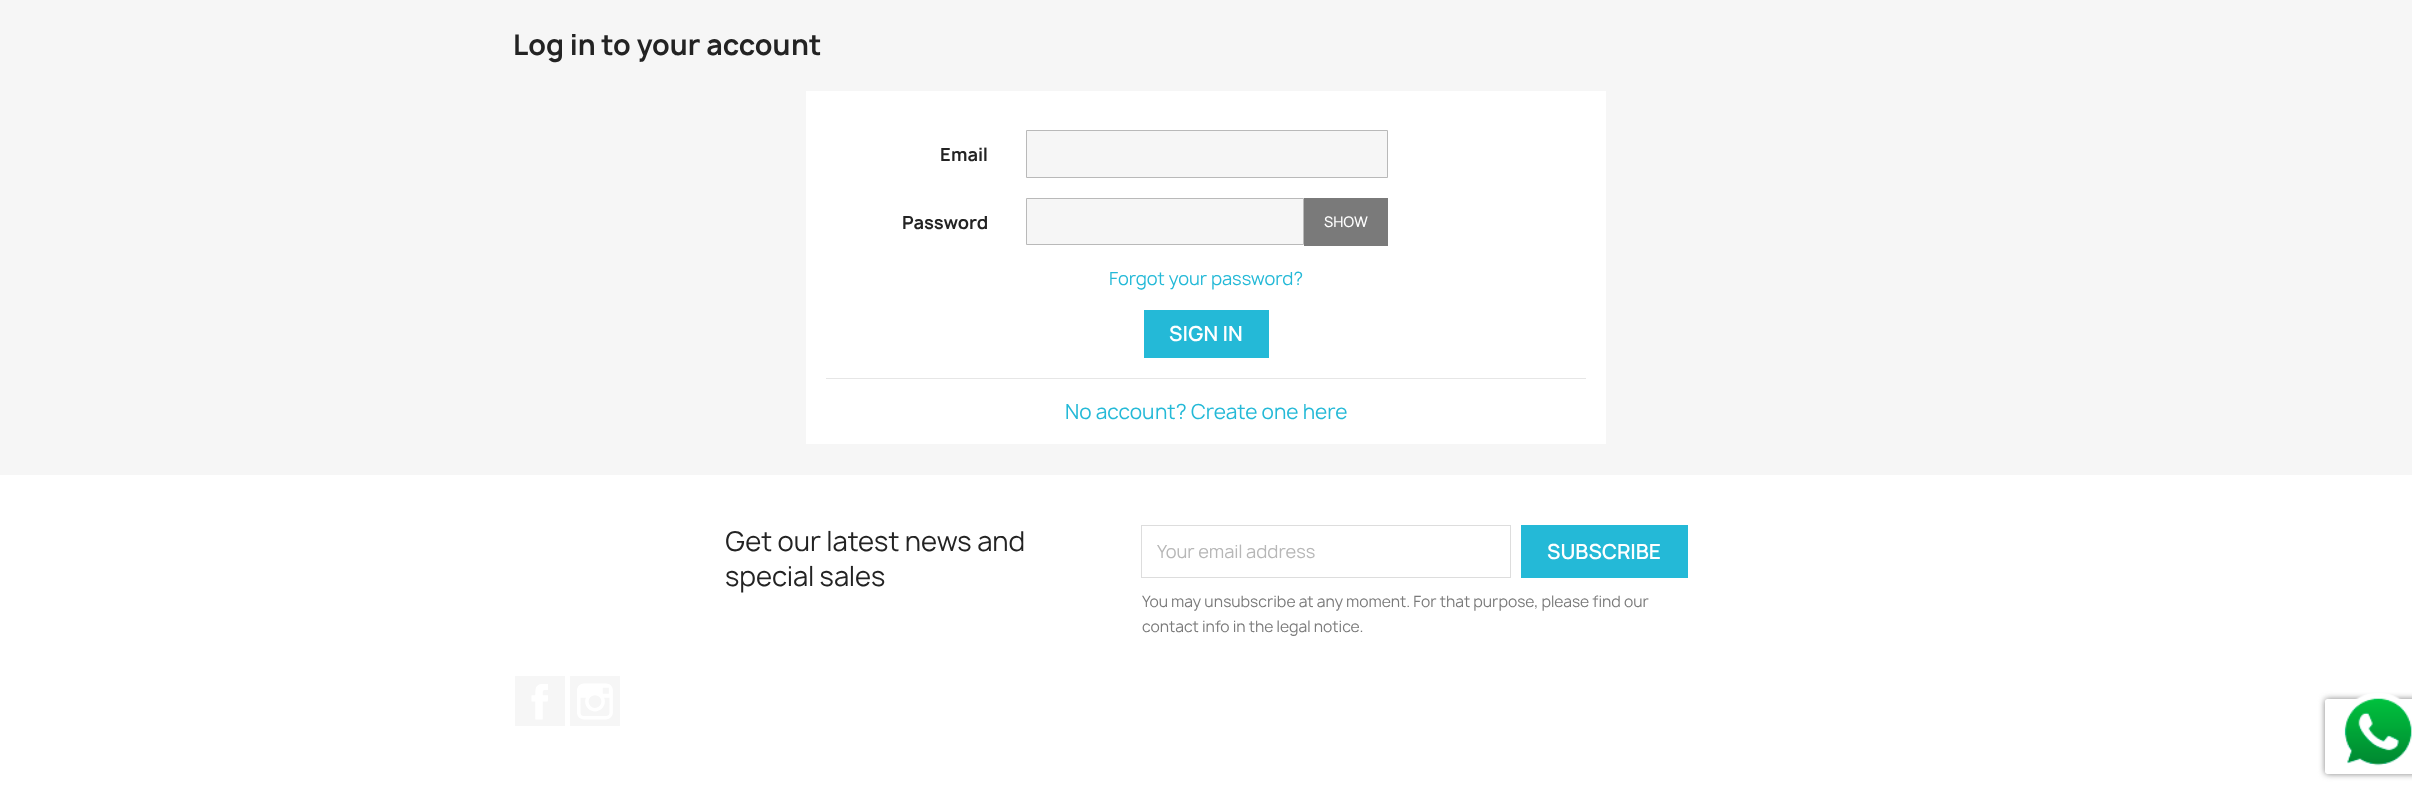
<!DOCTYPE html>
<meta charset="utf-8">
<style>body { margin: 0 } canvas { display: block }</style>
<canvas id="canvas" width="2412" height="791"></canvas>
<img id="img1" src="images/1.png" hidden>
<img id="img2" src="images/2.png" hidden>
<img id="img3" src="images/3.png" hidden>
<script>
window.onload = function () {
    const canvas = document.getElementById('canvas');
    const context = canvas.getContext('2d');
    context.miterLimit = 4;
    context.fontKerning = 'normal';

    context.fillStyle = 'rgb(255, 255, 255)';
    context.fillRect(0, 0, 2412, 791);
    context.fillStyle = 'rgb(246, 246, 246)';
    context.fillRect(0, 0, 2412, 475);
    context.fillStyle = 'rgb(255, 255, 255)';
    context.fillRect(806, 91, 800, 353);
    context.fillStyle = 'rgb(246, 246, 246)';
    context.beginPath();
    context.rect(1026.5, 130.5, 361, 47);
    context.fill();
    context.strokeStyle = 'rgb(185, 185, 185)';
    context.stroke();
    context.beginPath();
    context.rect(1026.5, 198.5, 277, 46);
    context.fill();
    context.stroke();
    context.fillStyle = 'rgb(122, 122, 122)';
    context.fillRect(1304, 198, 84, 48);
    context.fillStyle = 'rgb(36, 185, 215)';
    context.fillRect(1144, 310, 125, 48);
    context.fillStyle = 'rgb(230, 230, 230)';
    context.fillRect(826, 378, 760, 1);
    context.strokeStyle = 'rgb(221, 221, 221)';
    context.strokeRect(1141.5, 525.5, 369, 52);
    context.fillStyle = 'rgb(36, 185, 215)';
    context.fillRect(1521, 525, 167, 53);
    context.fillStyle = 'rgb(246, 246, 246)';
    context.fillRect(515, 676, 50, 50);
    context.drawImage(document.getElementById('img1'), 531, 684, 17, 36);
    context.fillRect(570, 676, 50, 50);
    context.drawImage(document.getElementById('img2'), 577, 683, 36, 37);
    context.save();
    context.beginPath();
    context.moveTo(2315, 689);
    context.lineTo(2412, 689);
    context.lineTo(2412, 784);
    context.lineTo(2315, 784);
    context.closePath();
    context.moveTo(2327.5, 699);
    context.lineTo(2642.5, 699);
    context.bezierCurveTo(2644, 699, 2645, 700, 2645, 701.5);
    context.lineTo(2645, 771.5);
    context.bezierCurveTo(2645, 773, 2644, 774, 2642.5, 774);
    context.lineTo(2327.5, 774);
    context.bezierCurveTo(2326, 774, 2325, 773, 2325, 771.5);
    context.lineTo(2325, 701.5);
    context.bezierCurveTo(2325, 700, 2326, 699, 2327.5, 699);
    context.closePath();
    context.clip('evenodd');
    context.fillStyle = 'rgb(128, 128, 128)';
    context.filter = 'blur(3px)';
    context.beginPath();
    context.roundRect(2325, 699, 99, 75, 2.5);
    context.fill();
    context.filter = 'none';
    context.restore();
    context.drawImage(document.getElementById('img3'), 2344, 693, 68, 73);
    context.font = 'bold 27.5px Manrope';
    context.fillStyle = 'rgb(35, 35, 35)';
    context.fillText('Log in to your account', 513, 55);
    context.font = 'bold 17.5px Manrope';
    context.fillText('Email', 940, 161);
    context.fillText('Password', 902, 229);
    context.font = '500 14px Manrope';
    context.fillStyle = 'rgb(255, 255, 255)';
    context.fillText('SHOW', 1324, 227);
    context.font = '17.5px Manrope';
    context.fillStyle = 'rgb(36, 185, 215)';
    context.fillText('Forgot your password?', 1109, 285);
    context.font = '600 20px Manrope';
    context.fillStyle = 'rgb(255, 255, 255)';
    context.fillText('SIGN IN', 1169, 341);
    context.font = '20px Manrope';
    context.fillStyle = 'rgb(36, 185, 215)';
    context.fillText('No account? Create one here', 1065, 419);
    context.font = '26.25px Manrope';
    context.fillStyle = 'rgb(35, 35, 35)';
    context.fillText('Get our latest news and', 725, 551);
    context.fillText('special sales', 725, 586);
    context.font = '17.5px Manrope';
    context.fillStyle = 'rgb(183, 183, 183)';
    context.fillText('Your email address', 1157, 558);
    context.font = '600 20px Manrope';
    context.fillStyle = 'rgb(255, 255, 255)';
    context.fillText('SUBSCRIBE', 1547, 559);
    context.font = '15px Manrope';
    context.fillStyle = 'rgb(122, 122, 122)';
    context.fillText('You may unsubscribe at any moment. For that purpose, please find our', 1142, 607);
    context.fillText('contact info in the legal notice.', 1142, 632);
};
</script>
